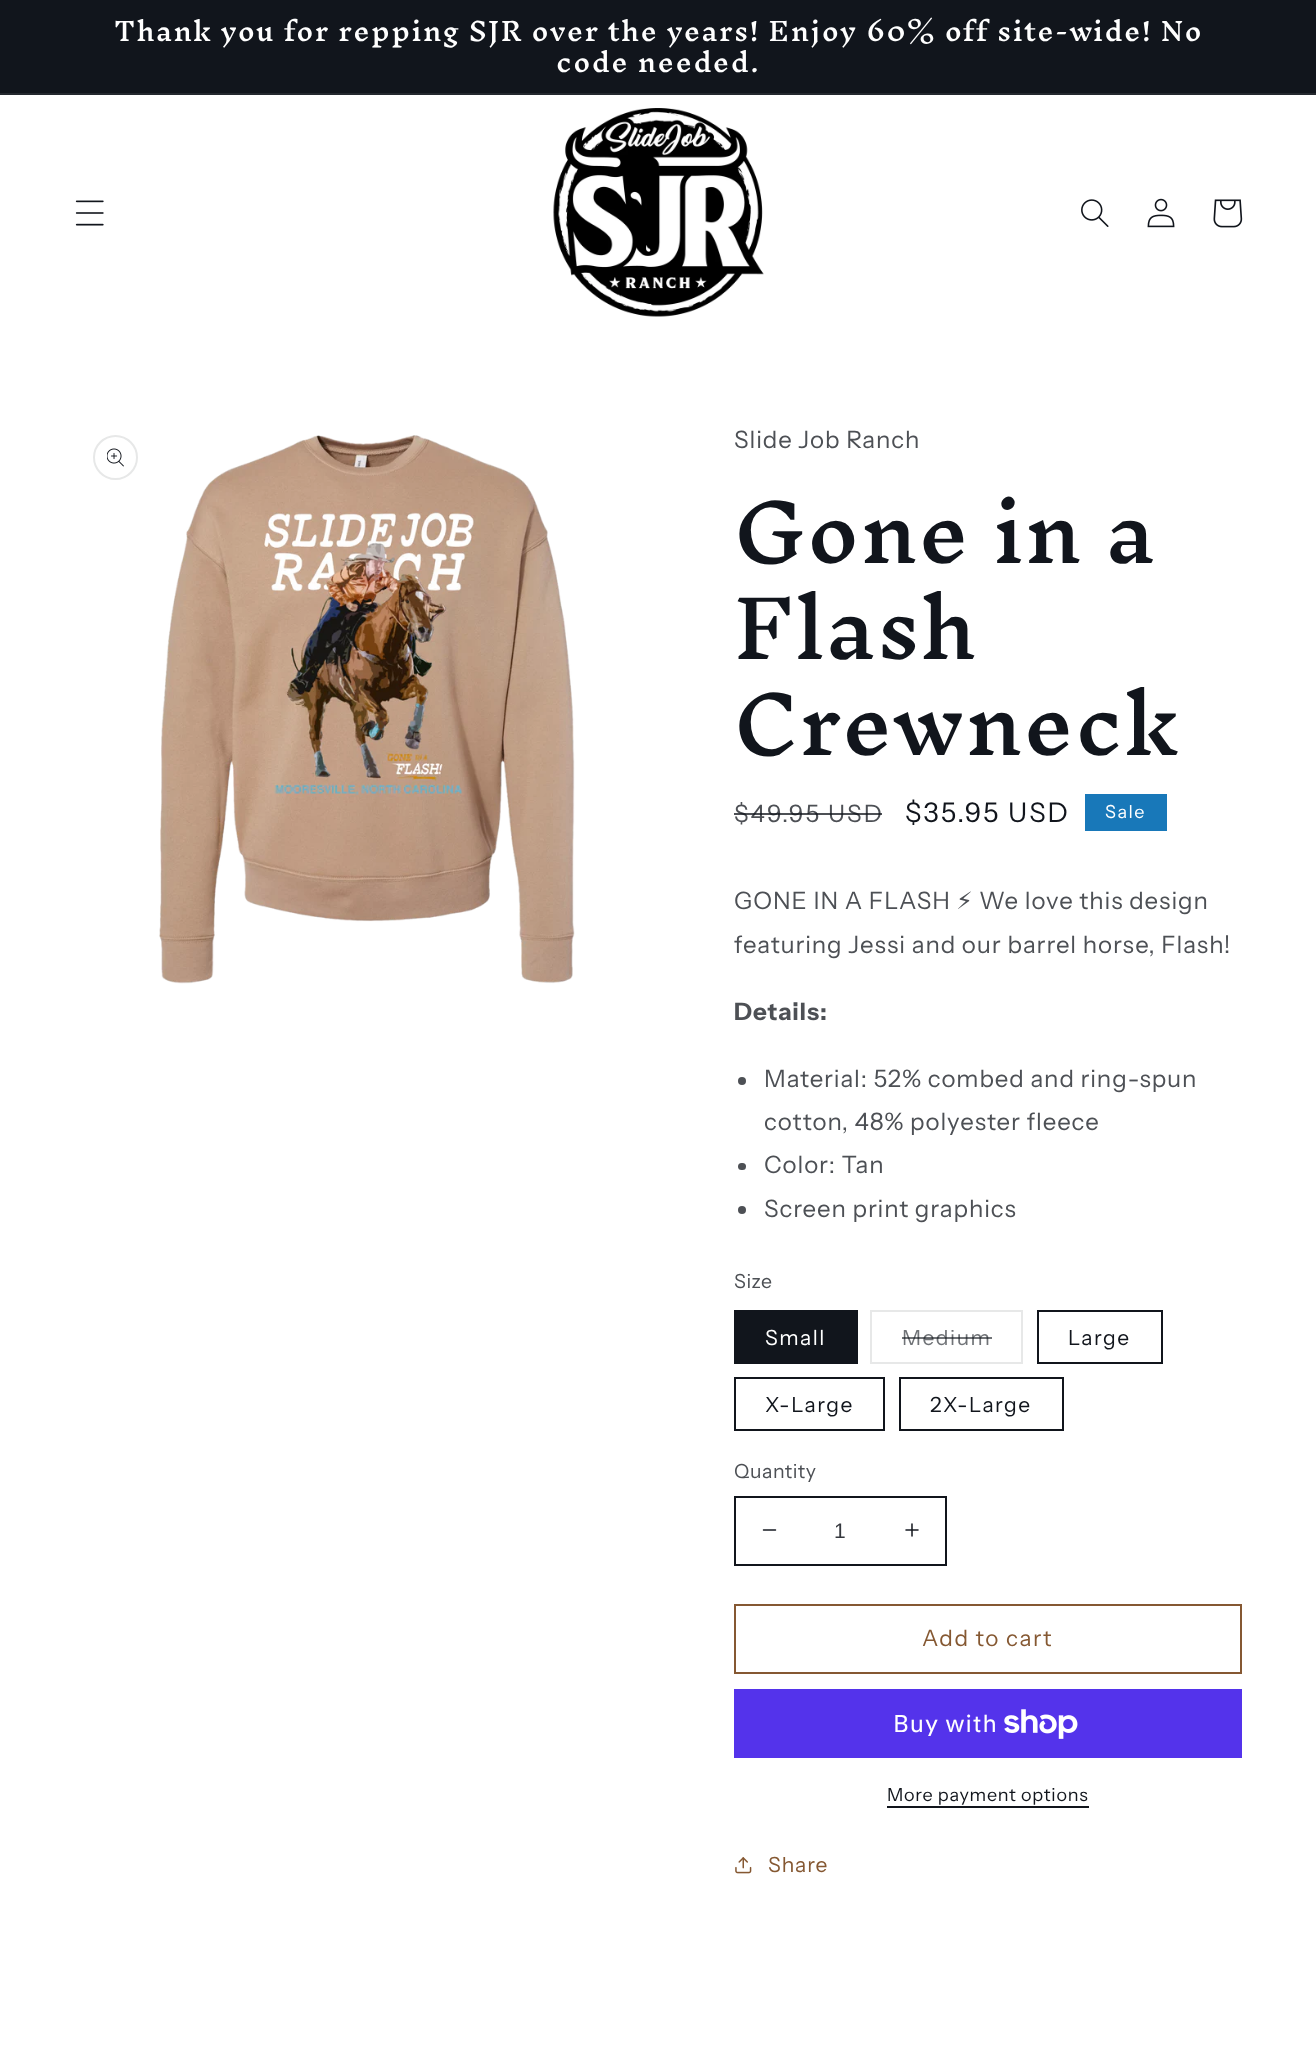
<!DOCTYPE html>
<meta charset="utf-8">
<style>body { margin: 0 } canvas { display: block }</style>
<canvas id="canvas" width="1316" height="2045"></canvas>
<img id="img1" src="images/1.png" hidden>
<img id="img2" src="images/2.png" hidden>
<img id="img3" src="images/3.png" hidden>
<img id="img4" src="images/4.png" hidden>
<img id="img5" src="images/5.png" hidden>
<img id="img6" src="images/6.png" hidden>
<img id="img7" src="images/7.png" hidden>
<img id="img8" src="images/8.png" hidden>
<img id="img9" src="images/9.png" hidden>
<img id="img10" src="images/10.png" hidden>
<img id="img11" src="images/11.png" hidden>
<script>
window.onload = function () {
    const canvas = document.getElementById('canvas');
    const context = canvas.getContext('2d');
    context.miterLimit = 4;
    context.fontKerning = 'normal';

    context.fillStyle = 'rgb(255, 255, 255)';
    context.fillRect(0, 0, 1316, 2045);
    context.fillStyle = 'rgb(17, 21, 28)';
    context.fillRect(0, 0, 1316, 93);
    context.fillStyle = 'rgb(36, 40, 46)';
    context.fillRect(0, 93, 1316, 2);
    context.drawImage(document.getElementById('img1'), 75, 200, 29, 26);
    context.drawImage(document.getElementById('img2'), 553, 108, 211, 209);
    context.drawImage(document.getElementById('img3'), 1081, 199, 28, 28);
    context.drawImage(document.getElementById('img4'), 1147, 198, 28, 30);
    context.drawImage(document.getElementById('img5'), 1213, 199, 30, 29);
    context.beginPath();
    context.arc(115.5, 457.5, 21.5, 0, 2 * Math.PI);
    context.strokeStyle = 'rgb(231, 232, 232)';
    context.lineWidth = 2;
    context.stroke();
    context.drawImage(document.getElementById('img6'), 107, 448, 17, 19);
    context.drawImage(document.getElementById('img7'), 159, 435, 416, 549);
    context.fillStyle = 'rgb(24, 120, 185)';
    context.fillRect(1085, 794, 82, 37);
    context.fillStyle = 'rgb(77, 80, 85)';
    context.beginPath();
    context.arc(742, 1081, 4, 0, 2 * Math.PI);
    context.fill();
    context.beginPath();
    context.roundRect(738, 1163, 8, 7, 3.5);
    context.fill();
    context.beginPath();
    context.arc(742, 1210, 4, 0, 2 * Math.PI);
    context.fill();
    context.fillStyle = 'rgb(17, 21, 28)';
    context.fillRect(734, 1310, 124, 54);
    context.strokeRect(871, 1311, 151, 52);
    context.strokeStyle = 'rgb(17, 21, 28)';
    context.strokeRect(1038, 1311, 124, 52);
    context.strokeRect(735, 1378, 149, 52);
    context.strokeRect(900, 1378, 163, 52);
    context.drawImage(document.getElementById('img8'), 762, 1529, 15, 2);
    context.drawImage(document.getElementById('img9'), 905, 1523, 14, 14);
    context.strokeRect(735, 1497, 211, 68);
    context.strokeStyle = 'rgb(133, 88, 50)';
    context.strokeRect(735, 1605, 506, 68);
    context.fillStyle = 'rgb(84, 51, 235)';
    context.fillRect(734, 1689, 508, 69);
    context.drawImage(document.getElementById('img10'), 1004, 1709, 74, 30);
    context.fillStyle = 'rgb(17, 21, 28)';
    context.fillRect(887, 1806, 202, 2);
    context.drawImage(document.getElementById('img11'), 735, 1857, 17, 17);
    context.letterSpacing = '1.5px';
    context.font = '500 25.35px Inknut Antiqua';
    context.fillStyle = 'rgb(255, 255, 255)';
    context.fillText('Thank you for repping SJR over the years! Enjoy 60% off site-wide! No', 114, 41);
    context.fillText('code needed.', 556, 72);
    context.letterSpacing = '0.9px';
    context.font = '24px Instrument Sans';
    context.fillStyle = 'rgb(77, 80, 85)';
    context.fillText('Slide Job Ranch', 734, 448);
    context.letterSpacing = '1.25px';
    context.font = '500 78px Inknut Antiqua';
    context.fillStyle = 'rgb(17, 21, 28)';
    context.fillText('Gone in a', 734, 563);
    context.fillText('Flash', 734, 659);
    context.fillText('Crewneck', 734, 755);
    context.letterSpacing = '2px';
    context.font = '24px Instrument Sans';
    context.fillStyle = 'rgb(77, 80, 85)';
    context.fillText('$49.95 USD', 734, 822);
    context.fillStyle = 'rgba(17, 21, 28, 0.75)';
    context.fillRect(734, 813, 148, 2);
    context.font = '27px Instrument Sans';
    context.fillStyle = 'rgb(17, 21, 28)';
    context.fillText('$35.95 USD', 905, 822);
    context.letterSpacing = '1.5px';
    context.font = '18px Instrument Sans';
    context.fillStyle = 'rgb(255, 255, 255)';
    context.fillText('Sale', 1105, 818);
    context.letterSpacing = '0.9px';
    context.font = '24px Instrument Sans';
    context.fillStyle = 'rgb(77, 80, 85)';
    context.fillText('GONE IN A FLASH', 734, 909);
    context.font = '24px DejaVu Sans';
    context.fillText('⚡︎', 956, 909);
    context.font = '24px Instrument Sans';
    context.fillText('We love this design', 979, 909);
    context.fillText('featuring Jessi and our barrel horse, Flash!', 734, 953);
    context.font = 'bold 24px Instrument Sans';
    context.fillText('Details:', 734, 1020);
    context.font = '24px Instrument Sans';
    context.fillText('Material: 52% combed and ring-spun', 764, 1087);
    context.fillText('cotton, 48% polyester fleece', 764, 1130);
    context.fillText('Color: Tan', 764, 1173);
    context.fillText('Screen print graphics', 764, 1217);
    context.letterSpacing = '0.5px';
    context.font = '19.5px Instrument Sans';
    context.fillText('Size', 734, 1288);
    context.letterSpacing = '1.5px';
    context.font = '21px Instrument Sans';
    context.fillStyle = 'rgb(255, 255, 255)';
    context.fillText('Small', 765, 1345);
    context.fillStyle = 'rgb(112, 115, 119)';
    context.fillText('Medium', 902, 1345);
    context.fillStyle = 'rgba(17, 21, 28, 0.6)';
    context.fillRect(902, 1337, 90, 2);
    context.fillStyle = 'rgb(17, 21, 28)';
    context.fillText('Large', 1068, 1345);
    context.fillText('X-Large', 765, 1412);
    context.fillText('2X-Large', 930, 1412);
    context.letterSpacing = '0.5px';
    context.font = '19.5px Instrument Sans';
    context.fillStyle = 'rgb(77, 80, 85)';
    context.fillText('Quantity', 734, 1478);
    context.letterSpacing = '0px';
    context.font = '21px Liberation Sans';
    context.fillStyle = 'rgb(53, 56, 62)';
    context.fillText('1', 834, 1538);
    context.letterSpacing = '1.5px';
    context.font = '22.5px Instrument Sans';
    context.fillStyle = 'rgb(133, 88, 50)';
    context.fillText('Add to cart', 922, 1646);
    context.letterSpacing = '0.9px';
    context.font = '24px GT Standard';
    context.fillStyle = 'rgb(255, 255, 255)';
    context.fillText('Buy with', 893, 1732);
    context.letterSpacing = '0.75px';
    context.font = '18px Instrument Sans';
    context.fillStyle = 'rgb(17, 21, 28)';
    context.fillText('More payment options', 887, 1801);
    context.letterSpacing = '0.9px';
    context.font = '21px Instrument Sans';
    context.fillStyle = 'rgb(133, 88, 50)';
    context.fillText('Share', 768, 1872);
};
</script>
